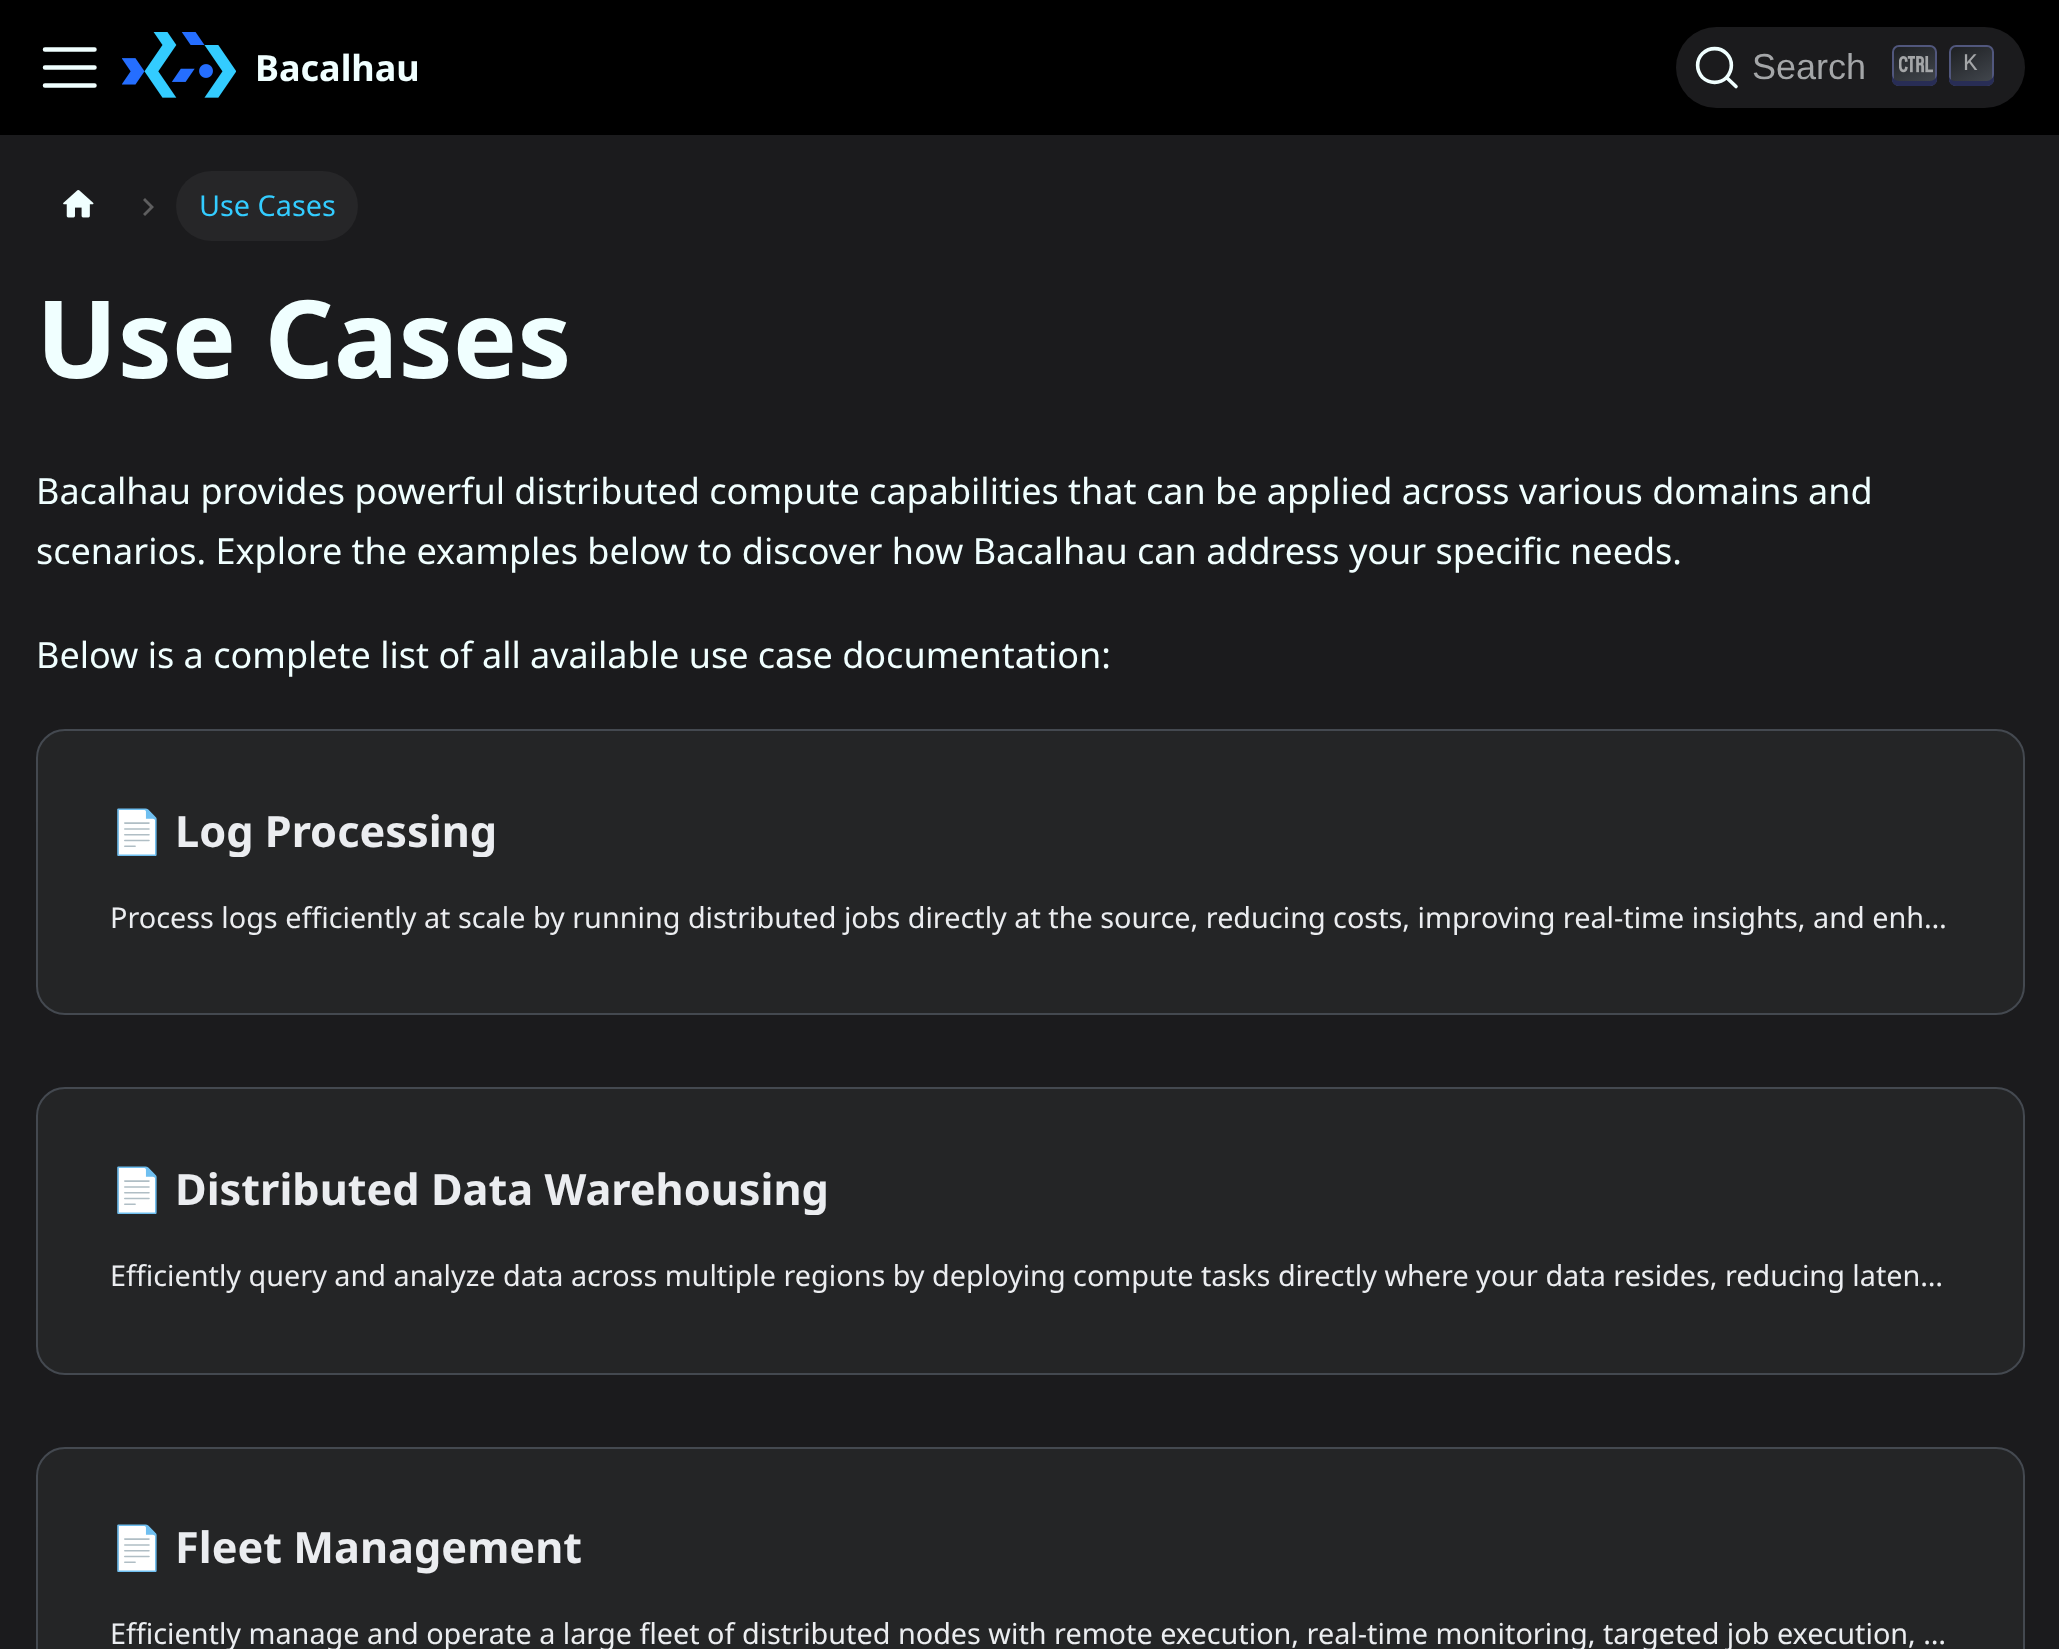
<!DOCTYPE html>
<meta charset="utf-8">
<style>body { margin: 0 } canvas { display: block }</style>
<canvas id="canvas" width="2059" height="1649"></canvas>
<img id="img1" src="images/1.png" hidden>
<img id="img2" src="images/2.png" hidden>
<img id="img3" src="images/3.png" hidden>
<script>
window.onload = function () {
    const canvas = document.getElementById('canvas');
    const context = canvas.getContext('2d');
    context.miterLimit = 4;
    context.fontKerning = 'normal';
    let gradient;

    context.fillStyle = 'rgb(27, 27, 29)';
    context.fillRect(0, 0, 2059, 1649);
    context.fillStyle = 'rgb(0, 0, 0)';
    context.fillRect(0, 0, 2059, 135);
    context.beginPath();
    context.moveTo(45, 49.5);
    context.lineTo(94.5, 49.5);
    context.moveTo(45, 67.5);
    context.lineTo(94.5, 67.5);
    context.moveTo(45, 85.5);
    context.lineTo(94.5, 85.5);
    context.strokeStyle = 'rgb(240, 255, 255)';
    context.lineWidth = 4.5;
    context.lineCap = 'round';
    context.stroke();
    context.drawImage(document.getElementById('img1'), 122, 32, 114, 66);
    context.fillStyle = 'rgb(27, 27, 29)';
    context.beginPath();
    context.roundRect(1676, 27, 349, 81, 40.5);
    context.fill();
    context.beginPath();
    context.moveTo(1726.5, 77.5);
    context.lineTo(1736, 86.5);
    context.lineTo(1726.5, 77.5);
    context.bezierCurveTo(1720, 84, 1709.5, 84, 1702.5, 77.5);
    context.bezierCurveTo(1696, 70.5, 1696, 60, 1702.5, 53.5);
    context.bezierCurveTo(1709.5, 47, 1720, 47, 1726.5, 53.5);
    context.bezierCurveTo(1733, 60, 1733, 70.5, 1726.5, 77.5);
    context.closePath();
    context.lineWidth = 3.6;
    context.lineJoin = 'round';
    context.stroke();
    gradient = context.createLinearGradient(1927, 90, 1902, 40);
    gradient.addColorStop(0, 'rgb(68, 73, 80)');
    gradient.addColorStop(1, 'rgb(28, 30, 33)');
    context.fillStyle = gradient;
    context.beginPath();
    context.roundRect(1893, 46, 43, 39, 6);
    context.fill();
    context.strokeStyle = 'rgb(81, 87, 125)';
    context.lineWidth = 2;
    context.lineJoin = 'miter';
    context.stroke();
    context.fillStyle = 'rgb(40, 45, 85)';
    context.beginPath();
    context.moveTo(1892, 74);
    context.lineTo(1892, 79);
    context.bezierCurveTo(1892, 83, 1895, 86, 1899, 86);
    context.lineTo(1930, 86);
    context.bezierCurveTo(1934, 86, 1937, 83, 1937, 79);
    context.lineTo(1937, 74);
    context.bezierCurveTo(1937, 78, 1934, 81, 1930, 81);
    context.lineTo(1899, 81);
    context.bezierCurveTo(1895, 81, 1892, 78, 1892, 74);
    context.closePath();
    context.fill();
    context.drawImage(document.getElementById('img2'), 1899, 56, 34, 17);
    gradient = context.createLinearGradient(1984, 90, 1958, 40);
    gradient.addColorStop(0, 'rgb(68, 73, 80)');
    gradient.addColorStop(1, 'rgb(28, 30, 33)');
    context.fillStyle = gradient;
    context.beginPath();
    context.roundRect(1950, 46, 43, 39, 6);
    context.fill();
    context.stroke();
    context.fillStyle = 'rgb(40, 45, 85)';
    context.beginPath();
    context.moveTo(1949, 77);
    context.lineTo(1949, 79);
    context.bezierCurveTo(1949, 83, 1952, 86, 1956, 86);
    context.lineTo(1987, 86);
    context.bezierCurveTo(1991, 86, 1994, 83, 1994, 79);
    context.lineTo(1994, 74);
    context.bezierCurveTo(1994, 78, 1990, 81, 1987, 81);
    context.lineTo(1955, 81);
    context.bezierCurveTo(1953, 81, 1950, 80, 1949, 77);
    context.closePath();
    context.fill();
    context.drawImage(document.getElementById('img3'), 63, 190, 31, 28);
    context.fillStyle = 'rgb(94, 94, 95)';
    context.beginPath();
    context.moveTo(145, 198);
    context.lineTo(143, 200);
    context.lineTo(150, 207);
    context.lineTo(143, 214);
    context.lineTo(145, 216);
    context.lineTo(154, 207);
    context.closePath();
    context.fill();
    context.fillStyle = 'rgb(38, 38, 40)';
    context.beginPath();
    context.roundRect(176, 171, 182, 70, 35);
    context.fill();
    context.fillStyle = 'rgb(36, 37, 38)';
    context.beginPath();
    context.roundRect(37, 730, 1987, 284, 28);
    context.fill();
    context.strokeStyle = 'rgb(68, 73, 80)';
    context.stroke();
    context.beginPath();
    context.roundRect(37, 1088, 1987, 286, 28);
    context.fill();
    context.stroke();
    context.beginPath();
    context.roundRect(37, 1448, 1987, 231, 28);
    context.fill();
    context.stroke();
    context.font = 'bold 36px Noto Sans';
    context.fillStyle = 'rgb(240, 255, 255)';
    context.fillText('Bacalhau', 255, 81);
    context.font = '36px Liberation Sans';
    context.fillStyle = 'rgb(164, 166, 168)';
    context.fillText('Search', 1752, 79);
    context.font = '24px Liberation Mono';
    context.fillText('K', 1963, 70);
    context.font = '28.8px Noto Sans';
    context.fillStyle = 'rgb(51, 204, 255)';
    context.fillText('Use Cases', 199, 216);
    context.font = 'bold 108px Noto Sans';
    context.fillStyle = 'rgb(240, 255, 255)';
    context.fillText('Use Cases', 36, 378);
    context.font = '36px Noto Sans';
    context.fillText('Bacalhau provides powerful distributed compute capabilities that can be applied across various domains and', 36, 504);
    context.fillText('scenarios. Explore the examples below to discover how Bacalhau can address your specific needs.', 36, 564);
    context.fillText('Below is a complete list of all available use case documentation:', 36, 668);
    context.font = 'bold 43.25px Noto Color Emoji';
    context.fillStyle = 'rgb(235, 237, 240)';
    context.fillText('📄️', 110, 847);
    context.save();
    context.beginPath();
    context.rect(110, 803, 1841, 54);
    context.clip();
    context.font = 'bold 43.25px Noto Sans';
    context.fillText('Log Processing', 175, 847);
    context.restore();
    context.font = '28.8px Noto Sans';
    context.fillText('Process logs efficiently at scale by running distributed jobs directly at the source, reducing costs, improving real-time insights, and enh…', 110, 928);
    context.font = 'bold 43.25px Noto Color Emoji';
    context.fillText('📄️', 110, 1205);
    context.save();
    context.beginPath();
    context.rect(110, 1161, 1841, 54);
    context.clip();
    context.font = 'bold 43.25px Noto Sans';
    context.fillText('Distributed Data Warehousing', 175, 1205);
    context.restore();
    context.font = '28.8px Noto Sans';
    context.fillText('Efficiently query and analyze data across multiple regions by deploying compute tasks directly where your data resides, reducing laten…', 110, 1286);
    context.font = 'bold 43.25px Noto Color Emoji';
    context.fillText('📄️', 110, 1563);
    context.font = 'bold 43.25px Noto Sans';
    context.fillText('Fleet Management', 175, 1563);
    context.font = '28.8px Noto Sans';
    context.fillText('Efficiently manage and operate a large fleet of distributed nodes with remote execution, real-time monitoring, targeted job execution, …', 110, 1644);
};
</script>
